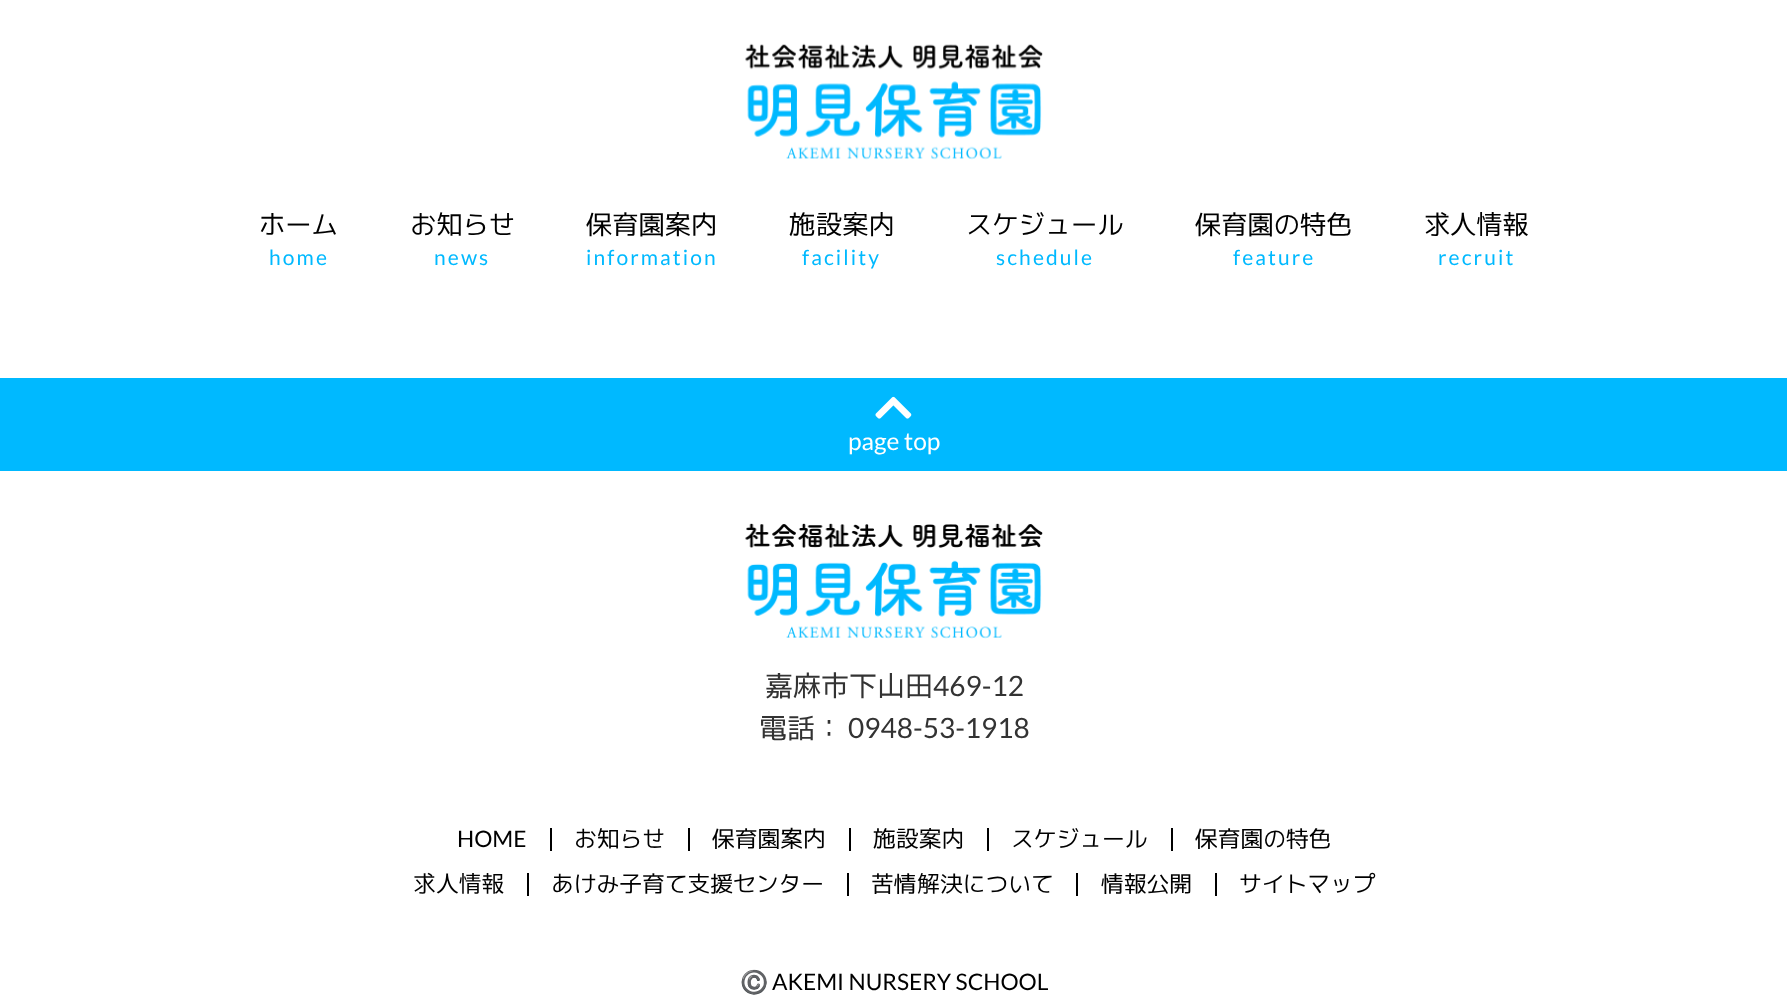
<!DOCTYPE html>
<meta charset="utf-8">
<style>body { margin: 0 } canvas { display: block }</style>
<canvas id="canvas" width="1787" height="1000"></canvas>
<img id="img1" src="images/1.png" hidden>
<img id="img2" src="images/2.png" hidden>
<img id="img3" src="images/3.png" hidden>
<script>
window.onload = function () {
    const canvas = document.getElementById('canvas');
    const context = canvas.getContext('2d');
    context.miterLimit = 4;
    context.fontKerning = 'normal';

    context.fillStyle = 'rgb(255, 255, 255)';
    context.fillRect(0, 0, 1787, 1000);
    context.drawImage(document.getElementById('img1'), 745, 43, 298, 117);
    context.fillStyle = 'rgb(0, 185, 255)';
    context.fillRect(0, 378, 1787, 93);
    context.drawImage(document.getElementById('img2'), 875, 396, 37, 23);
    context.drawImage(document.getElementById('img3'), 745, 523, 298, 116);
    context.fillStyle = 'rgb(0, 0, 0)';
    context.fillRect(550, 828, 2, 23);
    context.fillRect(688, 828, 2, 23);
    context.fillRect(849, 828, 2, 23);
    context.fillRect(987, 828, 2, 23);
    context.fillRect(1171, 828, 2, 23);
    context.fillRect(527, 873, 2, 23);
    context.fillRect(847, 873, 2, 23);
    context.fillRect(1076, 873, 2, 23);
    context.fillRect(1215, 873, 2, 23);
    context.font = '26.25px "M PLUS 1p"';
    context.fillText('ホーム', 259, 234);
    context.letterSpacing = '2.1px';
    context.font = '21px Lato';
    context.fillStyle = 'rgb(0, 185, 255)';
    context.fillText('home', 269, 265);
    context.letterSpacing = '0px';
    context.font = '26.25px "M PLUS 1p"';
    context.fillStyle = 'rgb(0, 0, 0)';
    context.fillText('お知らせ', 410, 234);
    context.letterSpacing = '2.1px';
    context.font = '21px Lato';
    context.fillStyle = 'rgb(0, 185, 255)';
    context.fillText('news', 434, 265);
    context.letterSpacing = '0px';
    context.font = '26.25px "M PLUS 1p"';
    context.fillStyle = 'rgb(0, 0, 0)';
    context.fillText('保育園案内', 586, 234);
    context.letterSpacing = '2.1px';
    context.font = '21px Lato';
    context.fillStyle = 'rgb(0, 185, 255)';
    context.fillText('information', 586, 265);
    context.letterSpacing = '0px';
    context.font = '26.25px "M PLUS 1p"';
    context.fillStyle = 'rgb(0, 0, 0)';
    context.fillText('施', 789, 234);
    context.font = '26.25px Noto Sans JP';
    context.fillText('設案内', 816, 234);
    context.letterSpacing = '2.1px';
    context.font = '21px Lato';
    context.fillStyle = 'rgb(0, 185, 255)';
    context.fillText('facility', 802, 265);
    context.letterSpacing = '0px';
    context.font = '26.25px "M PLUS 1p"';
    context.fillStyle = 'rgb(0, 0, 0)';
    context.fillText('スケジュール', 966, 234);
    context.letterSpacing = '2.1px';
    context.font = '21px Lato';
    context.fillStyle = 'rgb(0, 185, 255)';
    context.fillText('schedule', 996, 265);
    context.letterSpacing = '0px';
    context.font = '26.25px "M PLUS 1p"';
    context.fillStyle = 'rgb(0, 0, 0)';
    context.fillText('保育園の特色', 1195, 234);
    context.letterSpacing = '2.1px';
    context.font = '21px Lato';
    context.fillStyle = 'rgb(0, 185, 255)';
    context.fillText('feature', 1233, 265);
    context.letterSpacing = '0px';
    context.font = '26.25px "M PLUS 1p"';
    context.fillStyle = 'rgb(0, 0, 0)';
    context.fillText('求', 1424, 234);
    context.font = '26.25px Noto Sans JP';
    context.fillText('人情報', 1450, 234);
    context.letterSpacing = '2.1px';
    context.font = '21px Lato';
    context.fillStyle = 'rgb(0, 185, 255)';
    context.fillText('recruit', 1438, 265);
    context.letterSpacing = '0px';
    context.font = '24.5px Lato';
    context.fillStyle = 'rgb(255, 255, 255)';
    context.fillText('page top', 848, 450);
    context.font = '28px "M PLUS 1p"';
    context.fillStyle = 'rgb(51, 51, 51)';
    context.fillText('嘉', 765, 696);
    context.font = '28px Noto Sans JP';
    context.fillText('麻市下山田', 793, 696);
    context.font = '28px Lato';
    context.fillText('469-12', 933, 696);
    context.font = '28px "M PLUS 1p"';
    context.fillText('電話：', 759, 738);
    context.font = '28px Lato';
    context.fillText('0948-53-1918', 848, 738);
    context.font = '22.75px Lato';
    context.fillStyle = 'rgb(0, 0, 0)';
    context.fillText('HOME', 457, 847);
    context.font = '22.75px "M PLUS 1p"';
    context.fillText('お知らせ', 574, 847);
    context.fillText('保育園案内', 712, 847);
    context.fillText('施', 873, 847);
    context.font = '22.75px Noto Sans JP';
    context.fillText('設案内', 896, 847);
    context.font = '22.75px "M PLUS 1p"';
    context.fillText('スケジュール', 1011, 847);
    context.fillText('保育園の特色', 1195, 847);
    context.fillText('求', 413, 892);
    context.font = '22.75px Noto Sans JP';
    context.fillText('人情報', 436, 892);
    context.font = '22.75px "M PLUS 1p"';
    context.fillText('あけみ子育て支援センター', 551, 892);
    context.fillText('苦情', 871, 892);
    context.font = '22.75px Noto Sans JP';
    context.fillText('解', 917, 892);
    context.font = '22.75px "M PLUS 1p"';
    context.fillText('決について', 940, 892);
    context.fillText('情報公開', 1101, 892);
    context.fillText('サイトマップ', 1239, 892);
    context.font = '22.75px Noto Color Emoji';
    context.fillText('©️', 740, 990);
    context.font = '22.75px Lato';
    context.fillText('AKEMI NURSERY SCHOOL', 772, 990);
};
</script>
